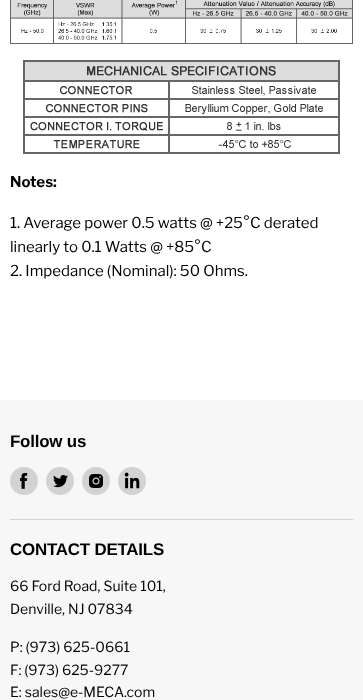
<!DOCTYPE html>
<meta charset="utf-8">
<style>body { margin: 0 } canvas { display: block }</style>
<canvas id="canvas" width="363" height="700"></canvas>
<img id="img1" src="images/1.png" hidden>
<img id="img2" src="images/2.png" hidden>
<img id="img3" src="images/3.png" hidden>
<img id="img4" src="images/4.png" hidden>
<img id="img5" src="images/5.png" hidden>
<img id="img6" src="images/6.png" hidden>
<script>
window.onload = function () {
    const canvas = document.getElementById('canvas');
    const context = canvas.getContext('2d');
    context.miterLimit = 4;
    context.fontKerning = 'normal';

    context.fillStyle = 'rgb(255, 255, 255)';
    context.fillRect(0, 0, 363, 700);
    context.drawImage(document.getElementById('img1'), 10, 0, 343, 44);
    context.drawImage(document.getElementById('img2'), 23, 60, 317, 94);
    context.fillStyle = 'rgb(247, 247, 247)';
    context.fillRect(0, 400, 363, 300);
    context.fillStyle = 'rgb(210, 210, 210)';
    context.fillRect(10, 519, 343, 1);
    context.beginPath();
    context.arc(24, 481, 14, 0, 2 * Math.PI);
    context.fill();
    context.drawImage(document.getElementById('img3'), 20, 473, 8, 16);
    context.beginPath();
    context.arc(60, 481, 14, 0, 2 * Math.PI);
    context.fill();
    context.drawImage(document.getElementById('img4'), 53, 475, 15, 13);
    context.beginPath();
    context.arc(96, 481, 14, 0, 2 * Math.PI);
    context.fill();
    context.drawImage(document.getElementById('img5'), 89, 474, 14, 14);
    context.beginPath();
    context.arc(132, 481, 14, 0, 2 * Math.PI);
    context.fill();
    context.drawImage(document.getElementById('img6'), 124, 472, 16, 17);
    context.font = 'bold 15px Libre Franklin';
    context.fillStyle = 'rgb(0, 0, 0)';
    context.fillText('Notes:', 10, 187);
    context.font = '15px Libre Franklin';
    context.fillText('1. Average power 0.5 watts @ +25°C derated', 10, 228);
    context.fillText('linearly to 0.1 Watts @ +85°C', 10, 252);
    context.fillText('2. Impedance (Nominal): 50 Ohms.', 10, 276);
    context.letterSpacing = '-0.2px';
    context.font = 'bold 16.9px Arimo';
    context.fillText('Follow us', 10, 447);
    context.fillText('CONTACT DETAILS', 10, 555);
    context.letterSpacing = '0px';
    context.font = '14px Libre Franklin';
    context.fillText('66 Ford Road, Suite 101,', 10, 591);
    context.fillText('Denville, NJ 07834', 10, 614);
    context.fillText('P: (973) 625-0661', 10, 652);
    context.fillText('F: (973) 625-9277', 10, 675);
    context.fillText('E: sales@e-MECA.com', 10, 697);
};
</script>
